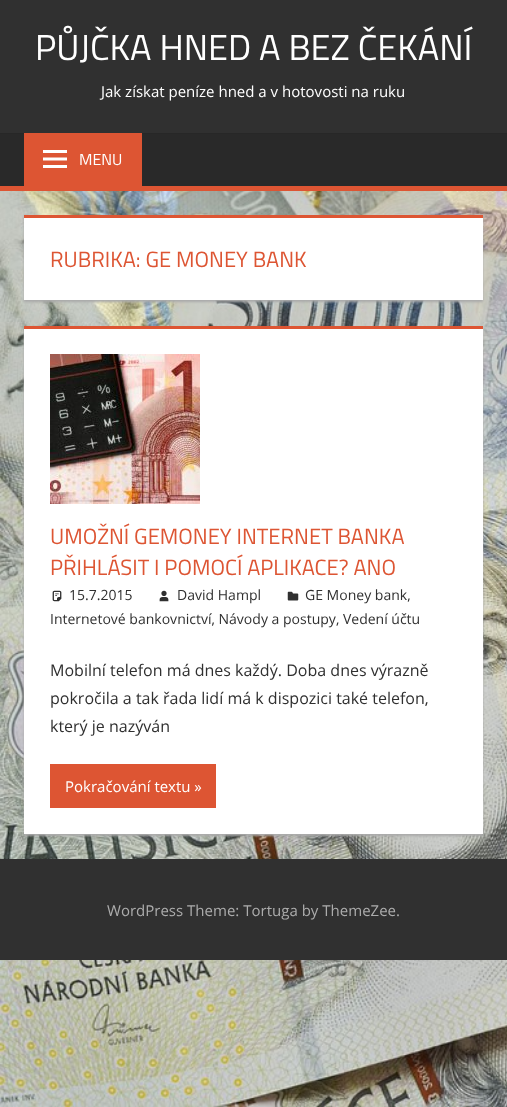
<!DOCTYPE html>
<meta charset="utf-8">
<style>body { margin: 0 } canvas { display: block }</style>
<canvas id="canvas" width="507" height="1107"></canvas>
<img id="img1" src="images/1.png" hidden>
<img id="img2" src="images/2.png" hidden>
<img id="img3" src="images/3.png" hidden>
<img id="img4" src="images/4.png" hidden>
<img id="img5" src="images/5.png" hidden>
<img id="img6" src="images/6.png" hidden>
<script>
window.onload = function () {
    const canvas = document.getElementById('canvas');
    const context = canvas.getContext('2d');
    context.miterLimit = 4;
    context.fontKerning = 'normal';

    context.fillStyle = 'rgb(255, 255, 255)';
    context.fillRect(0, 0, 507, 1107);
    context.drawImage(document.getElementById('img1'), 0, 191, 507, 916);
    context.fillStyle = 'rgb(48, 48, 48)';
    context.fillRect(0, 0, 507, 133);
    context.fillStyle = 'rgb(41, 41, 41)';
    context.fillRect(0, 134, 507, 52);
    context.fillStyle = 'rgb(39, 39, 39)';
    context.fillRect(0, 133, 507, 1);
    context.fillStyle = 'rgb(221, 85, 51)';
    context.fillRect(0, 186, 507, 5);
    context.fillRect(24, 133, 118, 53);
    context.drawImage(document.getElementById('img2'), 43, 150, 24, 18);
    context.fillStyle = 'rgb(170, 170, 170)';
    context.filter = 'blur(1px)';
    context.beginPath();
    context.rect(24, 217, 459, 85);
    context.fill();
    context.filter = 'none';
    context.fillStyle = 'rgb(255, 255, 255)';
    context.fillRect(24, 218, 459, 82);
    context.fillStyle = 'rgb(221, 85, 51)';
    context.fillRect(24, 215, 459, 3);
    context.fillStyle = 'rgb(170, 170, 170)';
    context.filter = 'blur(1px)';
    context.beginPath();
    context.rect(24, 328, 459, 508);
    context.fill();
    context.filter = 'none';
    context.fillStyle = 'rgb(255, 255, 255)';
    context.fillRect(24, 329, 459, 505);
    context.fillStyle = 'rgb(221, 85, 51)';
    context.fillRect(24, 326, 459, 3);
    context.drawImage(document.getElementById('img3'), 50, 354, 150, 150);
    context.drawImage(document.getElementById('img4'), 52, 590, 10, 12);
    context.drawImage(document.getElementById('img5'), 159, 590, 10, 12);
    context.drawImage(document.getElementById('img6'), 287, 591, 12, 10);
    context.fillRect(50, 764, 166, 44);
    context.fillStyle = 'rgb(48, 48, 48)';
    context.fillRect(0, 859, 507, 101);
    context.font = '36px Titillium Web';
    context.fillStyle = 'rgb(255, 255, 255)';
    context.fillText('PŮJČKA HNED A BEZ ČEKÁNÍ', 35, 60);
    context.font = '15px Open Sans';
    context.fillText('Jak získat peníze hned a v hotovosti na ruku', 101, 97);
    context.font = '16px Titillium Web';
    context.fillText('MENU', 79, 165);
    context.font = '22px Titillium Web';
    context.fillStyle = 'rgb(221, 85, 51)';
    context.fillText('RUBRIKA: GE MONEY BANK', 50, 267);
    context.fillText('UMOŽNÍ GEMONEY INTERNET BANKA', 50, 544);
    context.fillText('PŘIHLÁSIT I POMOCÍ APLIKACE? ANO', 50, 575);
    context.font = '14px Open Sans';
    context.fillStyle = 'rgb(48, 48, 48)';
    context.fillText('15.7.2015', 69, 600);
    context.fillText('David Hampl', 177, 600);
    context.fillText('GE Money bank,', 305, 600);
    context.fillText('Internetové bankovnictví, Návody a postupy, Vedení účtu', 50, 624);
    context.font = '16px Open Sans';
    context.fillText('Mobilní telefon má dnes každý. Doba dnes výrazně', 50, 676);
    context.fillText('pokročila a tak řada lidí má k dispozici také telefon,', 50, 704);
    context.fillText('který je nazýván', 50, 732);
    context.font = '15px Open Sans';
    context.fillStyle = 'rgb(255, 255, 255)';
    context.fillText('Pokračování textu »', 65, 792);
    context.fillStyle = 'rgb(172, 172, 172)';
    context.fillText('WordPress Theme: Tortuga by ThemeZee.', 107, 916);
};
</script>
